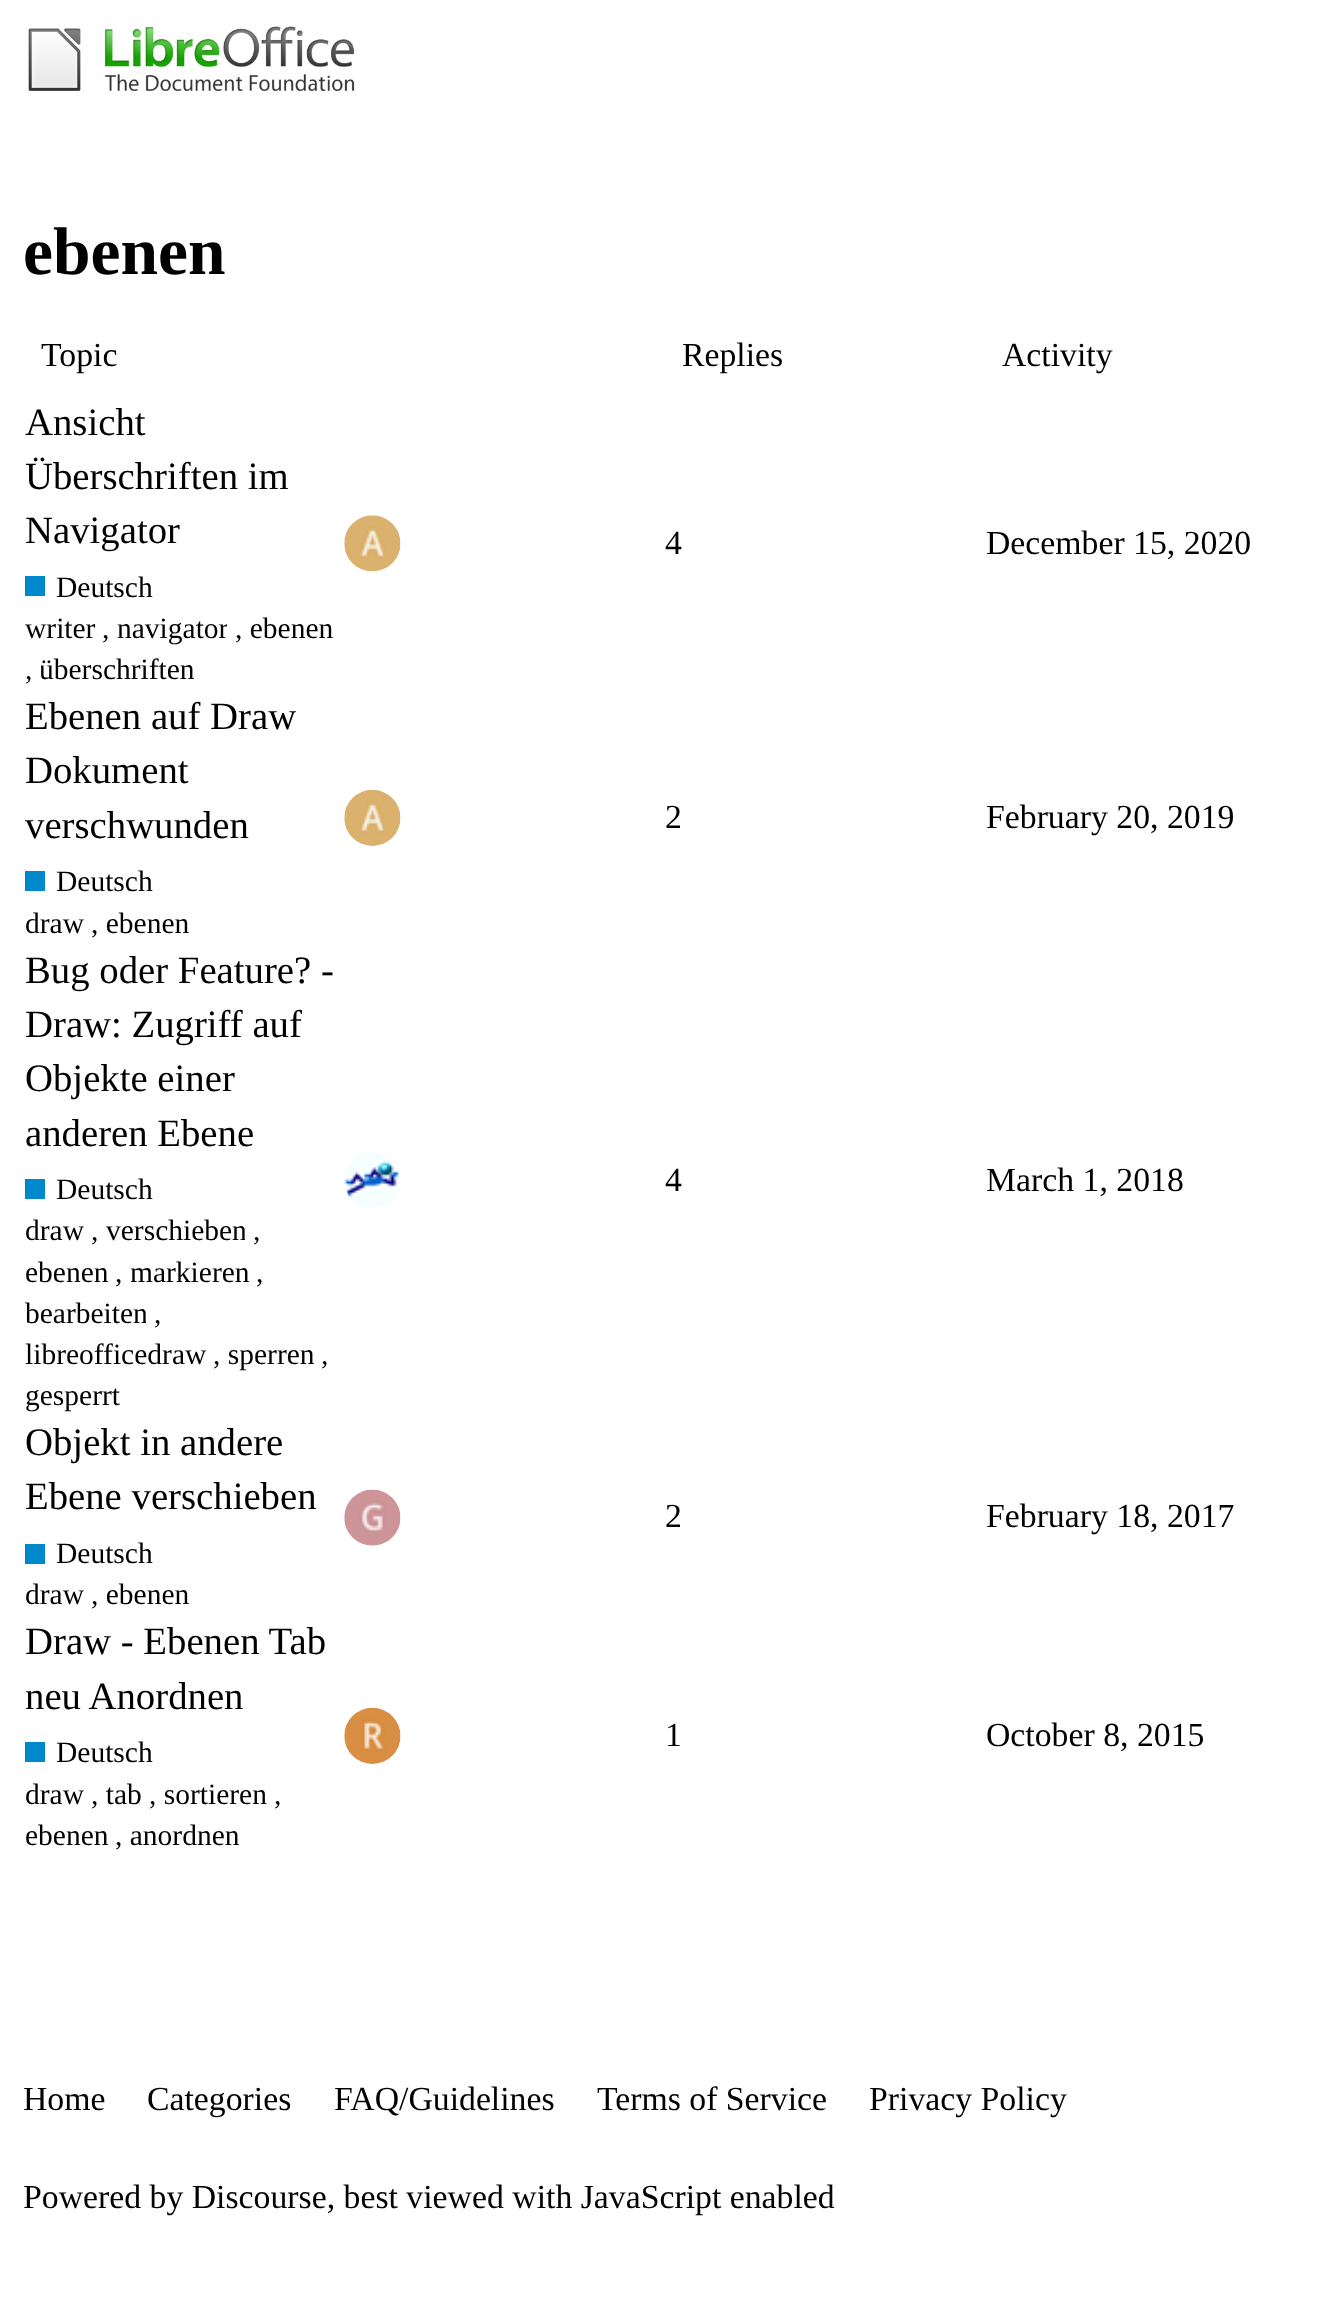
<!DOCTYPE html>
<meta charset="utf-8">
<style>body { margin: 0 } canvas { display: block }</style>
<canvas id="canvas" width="1329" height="2312"></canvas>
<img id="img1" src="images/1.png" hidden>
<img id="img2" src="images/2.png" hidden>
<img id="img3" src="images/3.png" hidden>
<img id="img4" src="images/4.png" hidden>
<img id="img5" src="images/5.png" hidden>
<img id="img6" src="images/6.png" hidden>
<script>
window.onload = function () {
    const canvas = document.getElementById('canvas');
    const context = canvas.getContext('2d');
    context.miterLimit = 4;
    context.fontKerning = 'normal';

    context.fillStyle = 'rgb(255, 255, 255)';
    context.fillRect(0, 0, 1329, 2312);
    context.drawImage(document.getElementById('img1'), 28, 26, 327, 65);
    context.fillStyle = 'rgb(0, 136, 204)';
    context.fillRect(25, 576, 20, 20);
    context.drawImage(document.getElementById('img2'), 344, 515, 57, 57);
    context.fillRect(25, 871, 20, 20);
    context.drawImage(document.getElementById('img3'), 344, 789, 57, 57);
    context.fillRect(25, 1179, 20, 20);
    context.drawImage(document.getElementById('img4'), 344, 1152, 56, 56);
    context.fillRect(25, 1544, 20, 20);
    context.drawImage(document.getElementById('img5'), 344, 1489, 57, 57);
    context.fillRect(25, 1742, 20, 20);
    context.drawImage(document.getElementById('img6'), 344, 1707, 57, 57);
    context.font = 'bold 67.5px Liberation Serif';
    context.fillStyle = 'rgb(0, 0, 0)';
    context.fillText('ebenen', 23, 274);
    context.font = '33.75px Liberation Serif';
    context.fillText('Topic', 41, 366);
    context.fillText('Replies', 682, 366);
    context.fillText('Activity', 1002, 366);
    context.font = '38.75px Liberation Serif';
    context.fillText('Ansicht', 25, 435);
    context.fillText('Überschriften im', 25, 489);
    context.fillText('Navigator', 25, 543);
    context.font = '29.5px Liberation Serif';
    context.fillText('Deutsch', 56, 597);
    context.fillText('writer', 25, 638);
    context.fillText(',', 102, 638);
    context.save();
    context.beginPath();
    context.rect(117, 610, 110, 40);
    context.clip();
    context.fillText('navigator', 117, 638);
    context.restore();
    context.fillText(', ebenen', 235, 638);
    context.fillText(',', 25, 679);
    context.save();
    context.beginPath();
    context.rect(41, 650, 153, 41);
    context.clip();
    context.fillText('überschriften', 39, 679);
    context.restore();
    context.font = '33.75px Liberation Serif';
    context.fillText('4', 665, 554);
    context.fillText('December 15, 2020', 986, 554);
    context.font = '38.75px Liberation Serif';
    context.fillText('Ebenen auf Draw', 25, 729);
    context.fillText('Dokument', 25, 783);
    context.fillText('verschwunden', 25, 838);
    context.font = '29.5px Liberation Serif';
    context.fillText('Deutsch', 56, 891);
    context.fillText('draw', 25, 933);
    context.fillText(', ebenen', 91, 933);
    context.font = '33.75px Liberation Serif';
    context.fillText('2', 665, 828);
    context.fillText('February 20, 2019', 986, 828);
    context.font = '38.75px Liberation Serif';
    context.fillText('Bug oder Feature? -', 25, 983);
    context.fillText('Draw: Zugriff auf', 25, 1037);
    context.fillText('Objekte einer', 25, 1091);
    context.fillText('anderen Ebene', 25, 1146);
    context.font = '29.5px Liberation Serif';
    context.fillText('Deutsch', 56, 1199);
    context.fillText('draw', 25, 1240);
    context.fillText(',', 91, 1240);
    context.save();
    context.beginPath();
    context.rect(106, 1211, 139, 42);
    context.clip();
    context.fillText('verschieben', 106, 1240);
    context.restore();
    context.fillText(',', 253, 1240);
    context.fillText('ebenen', 25, 1282);
    context.fillText(',', 115, 1282);
    context.save();
    context.beginPath();
    context.rect(131, 1253, 119, 41);
    context.clip();
    context.fillText('markieren', 130, 1282);
    context.restore();
    context.fillText(',', 256, 1282);
    context.save();
    context.beginPath();
    context.rect(25, 1294, 121, 40);
    context.clip();
    context.fillText('bearbeiten', 25, 1323);
    context.restore();
    context.fillText(',', 154, 1323);
    context.fillText('libreofficedraw', 25, 1364);
    context.fillText(', sperren', 213, 1364);
    context.fillText(',', 321, 1364);
    context.fillText('gesperrt', 25, 1405);
    context.font = '33.75px Liberation Serif';
    context.fillText('4', 665, 1191);
    context.fillText('March 1, 2018', 986, 1191);
    context.font = '38.75px Liberation Serif';
    context.fillText('Objekt in andere', 25, 1455);
    context.fillText('Ebene verschieben', 25, 1509);
    context.font = '29.5px Liberation Serif';
    context.fillText('Deutsch', 56, 1563);
    context.fillText('draw', 25, 1604);
    context.fillText(', ebenen', 91, 1604);
    context.font = '33.75px Liberation Serif';
    context.fillText('2', 665, 1527);
    context.fillText('February 18, 2017', 986, 1527);
    context.font = '38.75px Liberation Serif';
    context.fillText('Draw - Ebenen Tab', 25, 1654);
    context.fillText('neu Anordnen', 25, 1709);
    context.font = '29.5px Liberation Serif';
    context.fillText('Deutsch', 56, 1762);
    context.fillText('draw', 25, 1804);
    context.fillText(', tab', 91, 1804);
    context.fillText(', sortieren', 149, 1804);
    context.fillText(',', 274, 1804);
    context.fillText('ebenen', 25, 1845);
    context.fillText(', anordnen', 115, 1845);
    context.font = '33.75px Liberation Serif';
    context.fillText('1', 665, 1746);
    context.fillText('October 8, 2015', 986, 1746);
    context.fillText('Home', 23, 2110);
    context.fillText('Categories', 147, 2110);
    context.fillText('FAQ/Guidelines', 334, 2110);
    context.fillText('Terms of Service', 597, 2110);
    context.fillText('Privacy Policy', 869, 2110);
    context.fillText('Powered by Discourse, best viewed with JavaScript enabled', 23, 2208);
};
</script>
